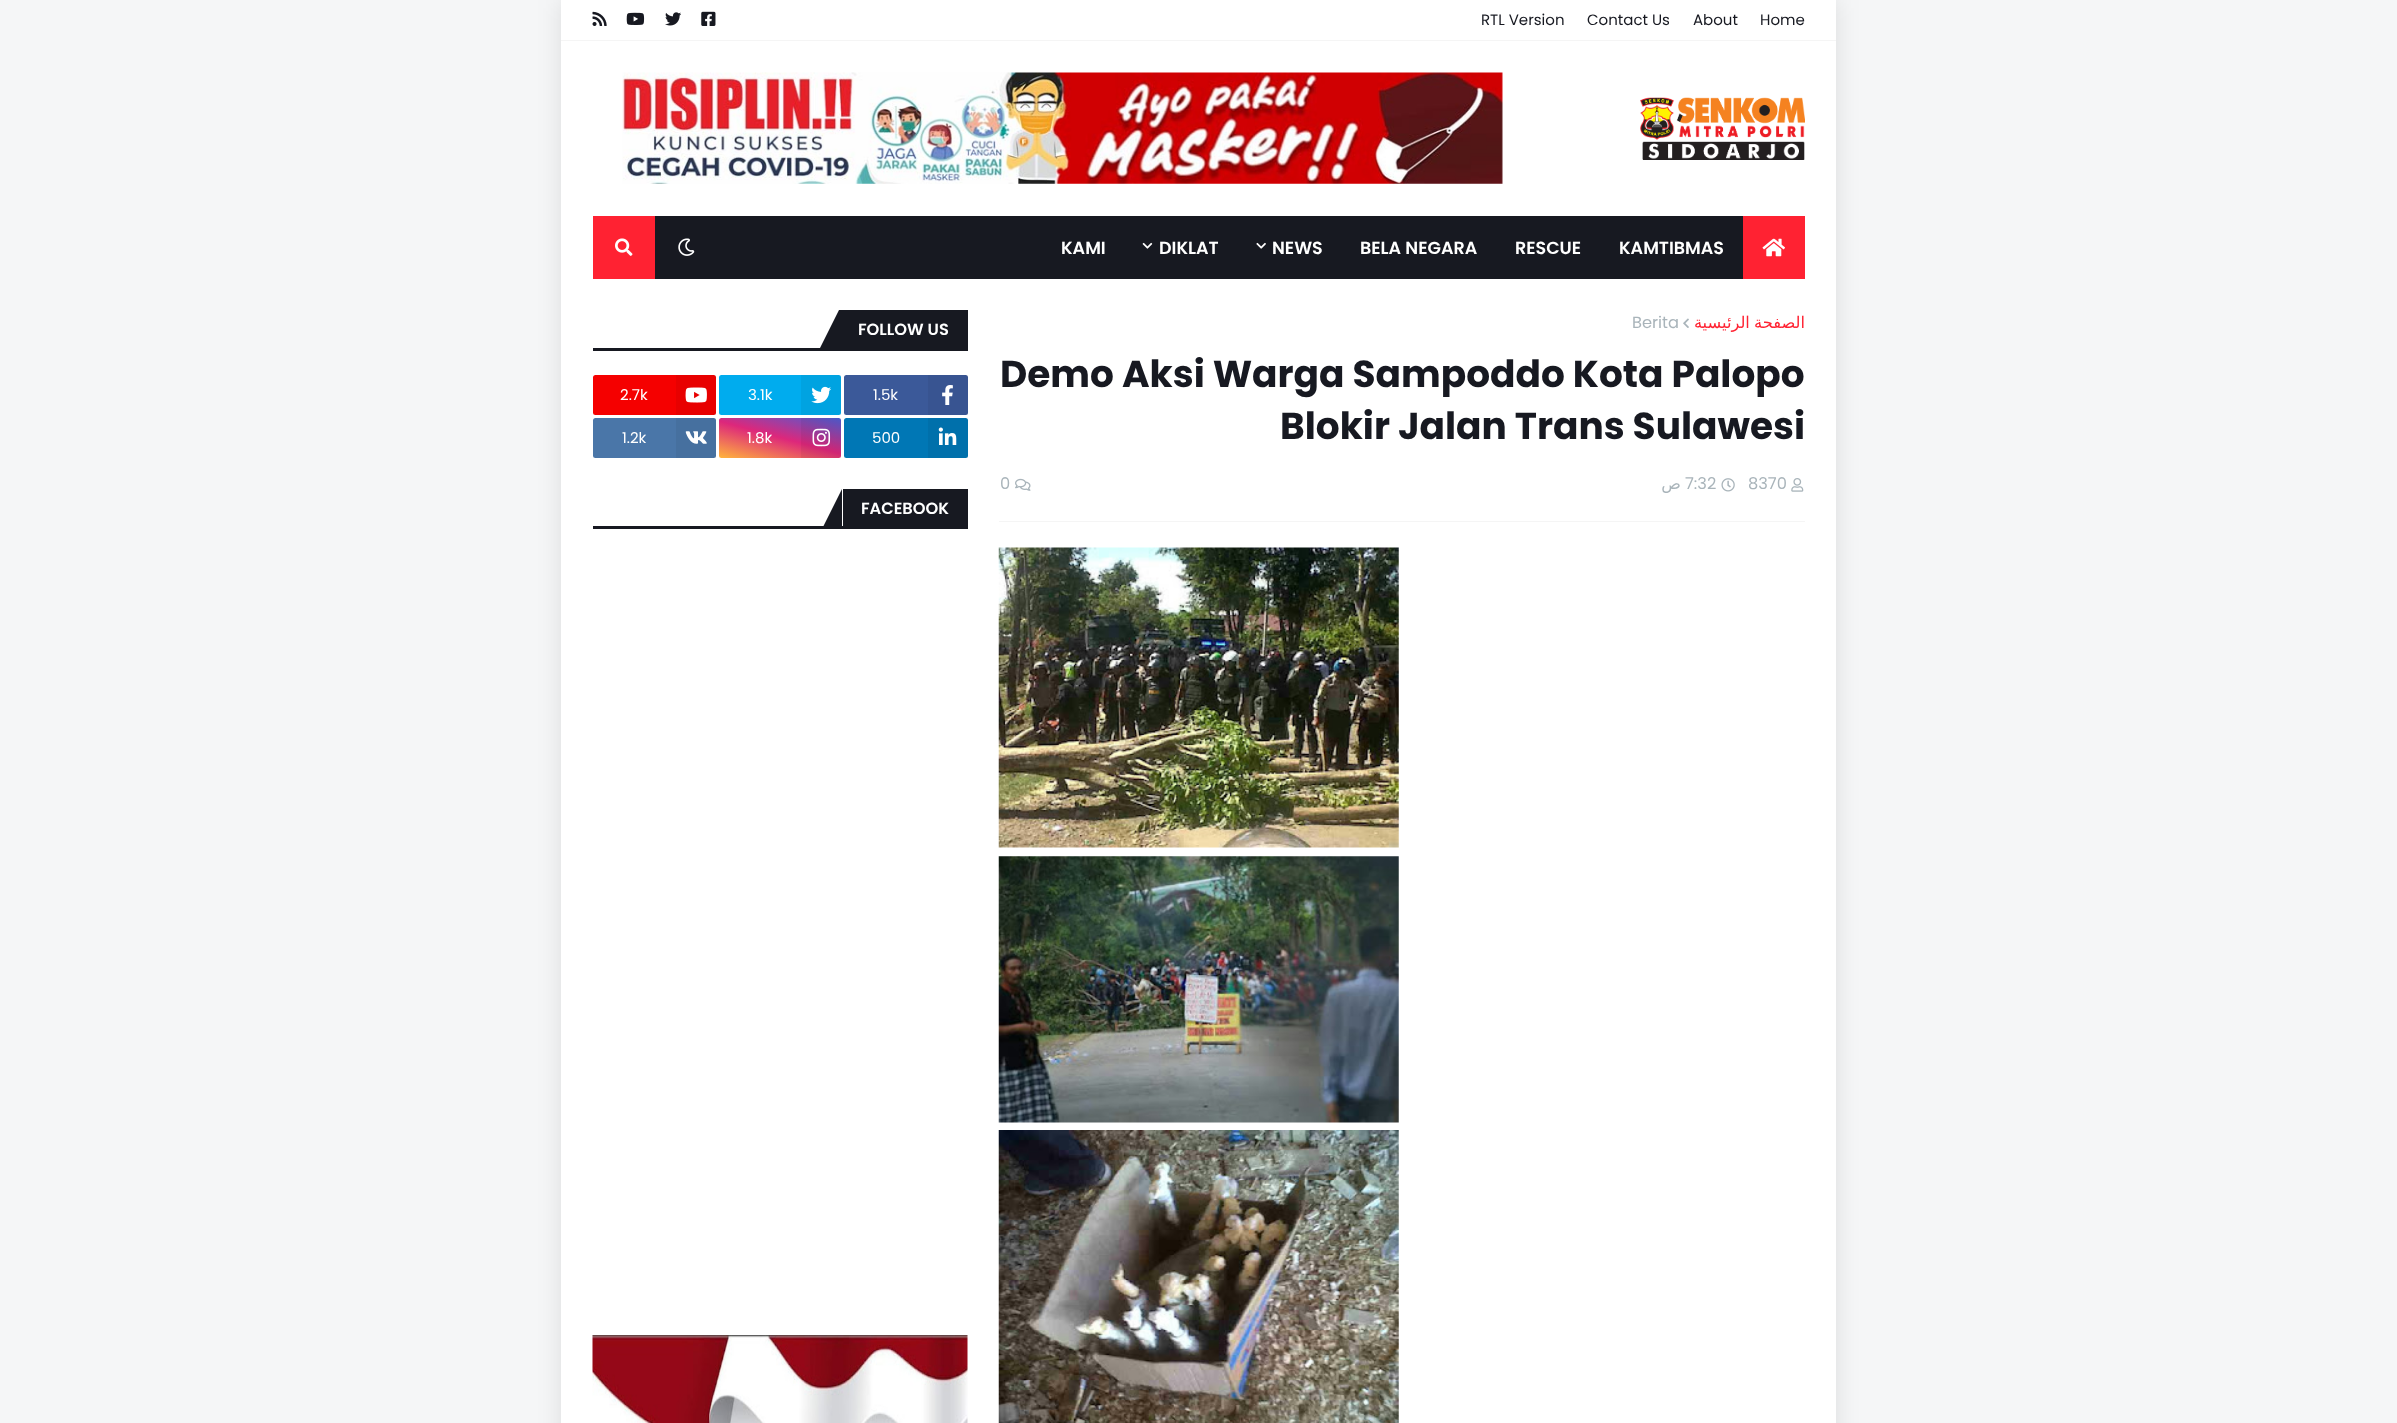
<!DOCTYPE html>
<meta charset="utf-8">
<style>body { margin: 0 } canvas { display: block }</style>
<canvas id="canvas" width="2397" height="1423"></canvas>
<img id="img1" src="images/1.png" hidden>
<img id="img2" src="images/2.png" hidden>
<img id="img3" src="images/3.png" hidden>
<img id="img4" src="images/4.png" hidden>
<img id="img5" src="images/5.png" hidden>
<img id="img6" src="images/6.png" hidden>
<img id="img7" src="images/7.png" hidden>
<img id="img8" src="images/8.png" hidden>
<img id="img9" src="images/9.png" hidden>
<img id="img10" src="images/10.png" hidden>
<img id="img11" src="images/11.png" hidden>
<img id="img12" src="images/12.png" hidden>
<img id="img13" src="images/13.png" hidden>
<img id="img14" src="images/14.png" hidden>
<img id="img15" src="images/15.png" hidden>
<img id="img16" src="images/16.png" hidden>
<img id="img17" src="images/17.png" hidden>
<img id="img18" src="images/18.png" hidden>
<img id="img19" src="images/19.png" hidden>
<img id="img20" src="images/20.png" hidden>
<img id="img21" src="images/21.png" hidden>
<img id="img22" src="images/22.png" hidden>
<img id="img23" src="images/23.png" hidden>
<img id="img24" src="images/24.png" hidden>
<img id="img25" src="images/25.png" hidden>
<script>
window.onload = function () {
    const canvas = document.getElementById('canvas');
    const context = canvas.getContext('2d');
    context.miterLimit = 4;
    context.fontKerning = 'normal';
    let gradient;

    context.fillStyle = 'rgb(245, 246, 247)';
    context.fillRect(0, 0, 2397, 1423);
    context.fillStyle = 'rgba(0, 0, 0, 0.1)';
    context.filter = 'blur(12.5px)';
    context.beginPath();
    context.rect(561, 0, 1275, 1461);
    context.fill();
    context.filter = 'none';
    context.fillStyle = 'rgb(255, 255, 255)';
    context.fillRect(561, 0, 1275, 1423);
    context.fillStyle = 'rgb(245, 245, 245)';
    context.fillRect(561, 40, 1275, 1);
    context.drawImage(document.getElementById('img1'), 592, 11, 15, 15);
    context.drawImage(document.getElementById('img2'), 626, 12, 19, 13);
    context.drawImage(document.getElementById('img3'), 665, 12, 16, 14);
    context.drawImage(document.getElementById('img4'), 701, 11, 15, 15);
    context.drawImage(document.getElementById('img5'), 622, 72, 881, 112);
    context.drawImage(document.getElementById('img6'), 1640, 97, 165, 63);
    context.fillStyle = 'rgb(23, 25, 33)';
    context.fillRect(655, 216, 1088, 63);
    context.fillStyle = 'rgb(255, 34, 50)';
    context.fillRect(593, 216, 62, 63);
    context.drawImage(document.getElementById('img7'), 615, 238, 18, 18);
    context.drawImage(document.getElementById('img8'), 678, 238, 17, 18);
    context.drawImage(document.getElementById('img9'), 1142, 242, 11, 7);
    context.drawImage(document.getElementById('img10'), 1256, 242, 10, 7);
    context.fillRect(1743, 216, 62, 63);
    context.drawImage(document.getElementById('img11'), 1762, 238, 23, 19);
    context.fillStyle = 'rgb(23, 25, 33)';
    context.fillRect(593, 348, 375, 3);
    context.fillRect(839, 310, 129, 38);
    context.beginPath();
    context.moveTo(839, 310);
    context.lineTo(839, 350);
    context.lineTo(819, 350);
    context.closePath();
    context.fill();
    context.fillStyle = 'rgb(245, 0, 0)';
    context.beginPath();
    context.roundRect(593, 375, 123, 40, 2.5);
    context.fill();
    context.fillStyle = 'rgba(0, 0, 0, 0.05)';
    context.fillRect(676, 375, 40, 40);
    context.drawImage(document.getElementById('img12'), 685, 387, 22, 16);
    context.fillStyle = 'rgb(0, 172, 238)';
    context.beginPath();
    context.roundRect(719, 375, 122, 40, 2.5);
    context.fill();
    context.fillStyle = 'rgba(0, 0, 0, 0.05)';
    context.fillRect(801, 375, 40, 40);
    context.drawImage(document.getElementById('img13'), 811, 386, 21, 18);
    context.fillStyle = 'rgb(59, 89, 153)';
    context.beginPath();
    context.roundRect(844, 375, 124, 40, 2.5);
    context.fill();
    context.fillStyle = 'rgba(0, 0, 0, 0.05)';
    context.fillRect(928, 375, 40, 40);
    context.drawImage(document.getElementById('img14'), 942, 385, 11, 20);
    context.fillStyle = 'rgb(74, 118, 168)';
    context.beginPath();
    context.roundRect(593, 418, 123, 40, 2.5);
    context.fill();
    context.fillStyle = 'rgba(0, 0, 0, 0.05)';
    context.fillRect(676, 418, 40, 40);
    context.drawImage(document.getElementById('img15'), 685, 431, 22, 13);
    gradient = context.createLinearGradient(771, 471, 789, 404);
    gradient.addColorStop(0, 'rgb(255, 177, 61)');
    gradient.addColorStop(0.5, 'rgb(221, 39, 123)');
    gradient.addColorStop(1, 'rgb(77, 94, 212)');
    context.fillStyle = gradient;
    context.beginPath();
    context.roundRect(719, 418, 122, 40, 2.5);
    context.fill();
    context.fillStyle = 'rgba(0, 0, 0, 0.05)';
    context.fillRect(801, 418, 40, 40);
    context.drawImage(document.getElementById('img16'), 812, 428, 19, 19);
    context.fillStyle = 'rgb(0, 119, 181)';
    context.beginPath();
    context.roundRect(844, 418, 124, 40, 2.5);
    context.fill();
    context.fillStyle = 'rgba(0, 0, 0, 0.05)';
    context.fillRect(928, 418, 40, 40);
    context.drawImage(document.getElementById('img17'), 938, 427, 19, 18);
    context.fillStyle = 'rgb(23, 25, 33)';
    context.fillRect(593, 526, 250, 3);
    context.fillRect(843, 489, 125, 40);
    context.beginPath();
    context.moveTo(842, 489);
    context.lineTo(842, 529);
    context.lineTo(822, 529);
    context.closePath();
    context.fill();
    context.drawImage(document.getElementById('img18'), 592, 1335, 376, 88);
    context.fillStyle = 'rgb(245, 245, 245)';
    context.fillRect(999, 521, 806, 1);
    context.drawImage(document.getElementById('img19'), 1683, 318, 6, 10);
    context.drawImage(document.getElementById('img20'), 1015, 478, 16, 13);
    context.drawImage(document.getElementById('img21'), 1721, 478, 14, 14);
    context.drawImage(document.getElementById('img22'), 1791, 478, 13, 14);
    context.drawImage(document.getElementById('img23'), 998, 547, 401, 301);
    context.drawImage(document.getElementById('img24'), 998, 856, 401, 267);
    context.drawImage(document.getElementById('img25'), 998, 1130, 401, 293);
    context.font = '15px Poppins';
    context.fillStyle = 'rgb(23, 25, 33)';
    context.fillText('RTL Version', 1481, 25);
    context.fillText('Contact Us', 1587, 25);
    context.fillText('About', 1693, 25);
    context.fillText('Home', 1760, 25);
    context.font = '600 17.5px Poppins';
    context.fillStyle = 'rgb(255, 255, 255)';
    context.fillText('KAMI', 1061, 254);
    context.fillText('DIKLAT', 1159, 254);
    context.fillText('NEWS', 1272, 254);
    context.fillText('BELA NEGARA', 1360, 254);
    context.fillText('RESCUE', 1515, 254);
    context.fillText('KAMTIBMAS', 1619, 254);
    context.font = '600 16.25px Poppins';
    context.fillText('FOLLOW US', 858, 335);
    context.font = '15px Poppins';
    context.fillText('2.7k', 620, 400);
    context.fillText('3.1k', 748, 400);
    context.fillText('1.5k', 873, 400);
    context.fillText('1.2k', 622, 443);
    context.fillText('1.8k', 747, 443);
    context.fillText('500', 872, 443);
    context.font = '600 16.25px Poppins';
    context.fillText('FACEBOOK', 861, 514);
    context.font = '16.25px Poppins';
    context.fillStyle = 'rgb(169, 180, 186)';
    context.fillText('Berita', 1632, 328);
    context.wordSpacing = '-1px';
    context.direction = 'rtl';
    context.font = '16.25px DejaVu Sans';
    context.fillStyle = 'rgb(255, 34, 50)';
    context.fillText('الصفحة الرئيسية', 1805, 328);
    context.wordSpacing = '0px';
    context.direction = 'ltr';
    context.font = 'bold 37.5px Poppins';
    context.fillStyle = 'rgb(23, 25, 33)';
    context.fillText('Demo Aksi Warga Sampoddo Kota Palopo', 1000, 387);
    context.fillText('Blokir Jalan Trans Sulawesi', 1280, 439);
    context.font = '16.25px Poppins';
    context.fillStyle = 'rgb(169, 180, 186)';
    context.fillText('0', 1000, 489);
    context.direction = 'rtl';
    context.font = '16.25px DejaVu Sans';
    context.fillText('ص', 1681, 489);
    context.direction = 'ltr';
    context.font = '16.25px Poppins';
    context.fillText('7:32', 1685, 489);
    context.fillText('8370', 1748, 489);
};
</script>
